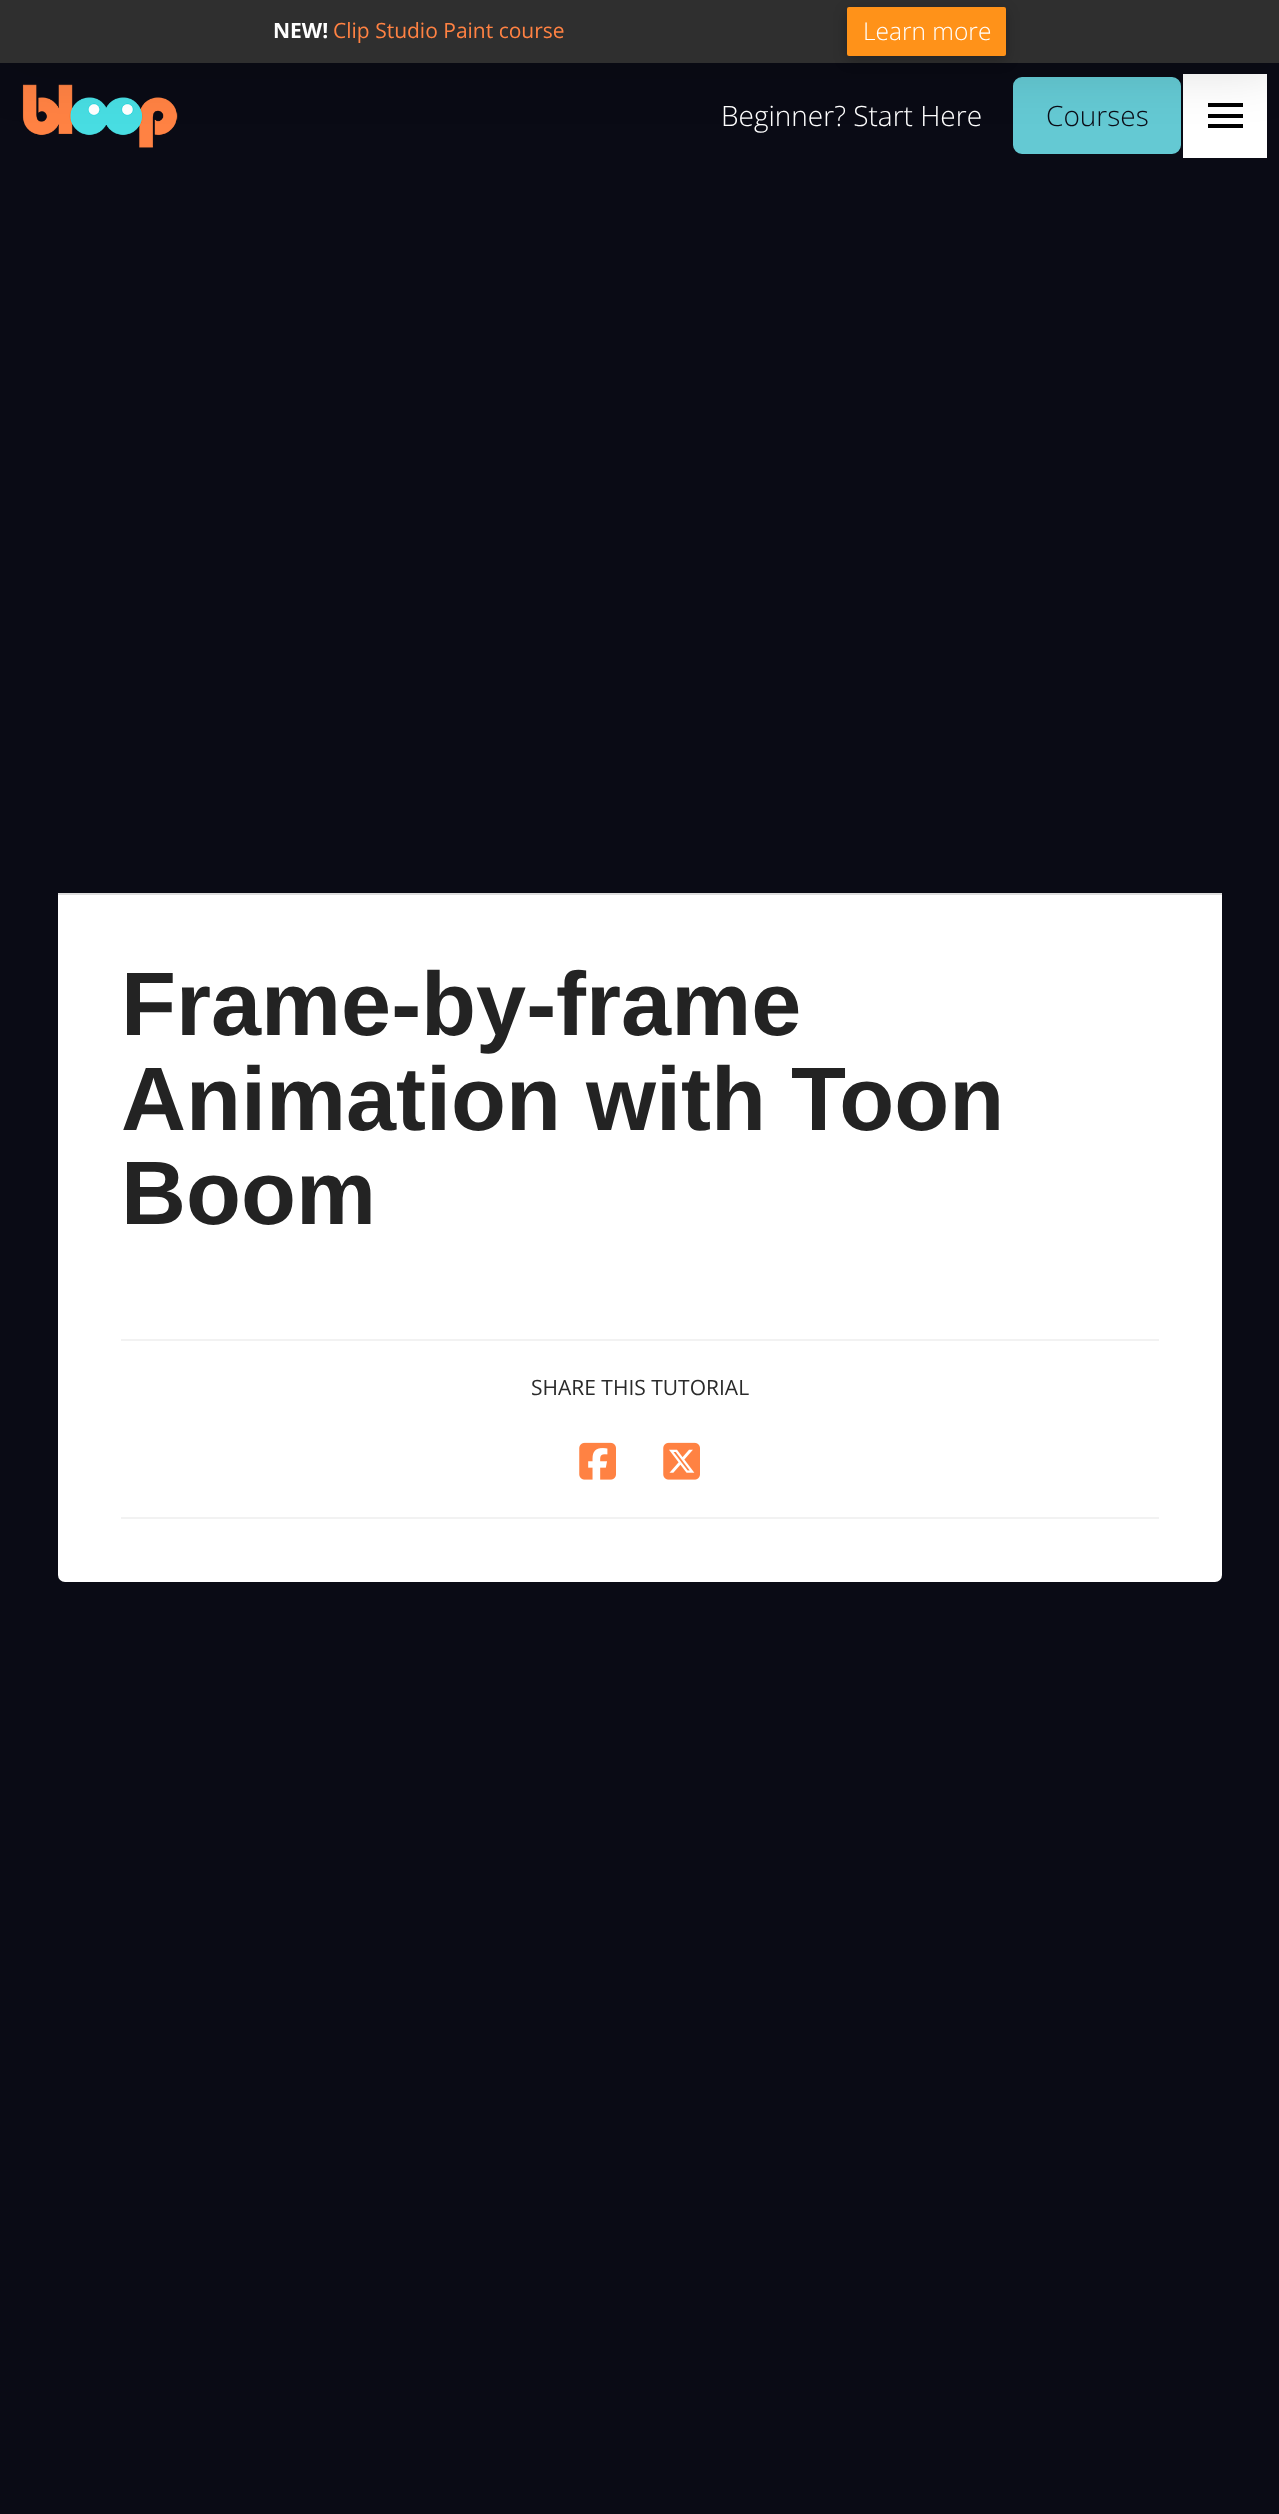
<!DOCTYPE html>
<meta charset="utf-8">
<style>body { margin: 0 } canvas { display: block }</style>
<canvas id="canvas" width="1279" height="2514"></canvas>
<img id="img1" src="images/1.png" hidden>
<img id="img2" src="images/2.png" hidden>
<img id="img3" src="images/3.png" hidden>
<script>
window.onload = function () {
    const canvas = document.getElementById('canvas');
    const context = canvas.getContext('2d');
    context.miterLimit = 4;
    context.fontKerning = 'normal';

    context.fillStyle = 'rgb(10, 11, 21)';
    context.fillRect(0, 0, 1279, 2514);
    context.drawImage(document.getElementById('img1'), 22, 84, 156, 64);
    context.fillStyle = 'rgb(100, 201, 211)';
    context.beginPath();
    context.roundRect(1014, 78, 166, 75, 8);
    context.fill();
    context.strokeStyle = 'rgb(100, 201, 211)';
    context.lineWidth = 2;
    context.stroke();
    context.fillStyle = 'rgb(255, 255, 255)';
    context.fillRect(1183, 74, 84, 84);
    context.fillStyle = 'rgb(0, 0, 0)';
    context.fillRect(1208, 103, 35, 4);
    context.fillRect(1208, 114, 35, 4);
    context.fillRect(1208, 124, 35, 4);
    context.fillStyle = 'rgba(0, 0, 0, 0.15)';
    context.filter = 'blur(28px)';
    context.beginPath();
    context.rect(0, 4, 1279, 63);
    context.fill();
    context.filter = 'none';
    context.fillStyle = 'rgb(47, 47, 47)';
    context.fillRect(0, 0, 1279, 63);
    context.fillStyle = 'rgba(0, 0, 0, 0.25)';
    context.filter = 'blur(6.5px)';
    context.beginPath();
    context.roundRect(847, 11, 159, 49, 2);
    context.fill();
    context.filter = 'none';
    context.fillStyle = 'rgb(255, 146, 25)';
    context.beginPath();
    context.roundRect(847, 7, 159, 49, 2);
    context.fill();
    context.fillStyle = 'rgb(255, 255, 255)';
    context.beginPath();
    context.roundRect(58, 894, 1164, 688, [0, 0, 7, 7]);
    context.fill();
    context.fillStyle = 'rgb(221, 221, 221)';
    context.fillRect(58, 893, 1164, 2);
    context.fillStyle = 'rgb(242, 242, 242)';
    context.fillRect(121, 1339, 1038, 2);
    context.fillRect(121, 1517, 1038, 2);
    context.drawImage(document.getElementById('img2'), 579, 1442, 37, 38);
    context.drawImage(document.getElementById('img3'), 663, 1442, 37, 38);
    context.font = 'bold 21px Open Sans';
    context.fillStyle = 'rgb(255, 255, 255)';
    context.fillText('NEW!', 273, 38);
    context.font = '21px Open Sans';
    context.fillStyle = 'rgb(255, 130, 67)';
    context.fillText('Clip Studio Paint course', 333, 38);
    context.font = '300 24.5px Open Sans';
    context.fillStyle = 'rgb(255, 255, 255)';
    context.fillText('Learn more', 863, 40);
    context.font = '300 28px Open Sans';
    context.fillText('Beginner? Start Here', 721, 126);
    context.fillStyle = 'rgb(10, 11, 21)';
    context.fillText('Courses', 1046, 126);
    context.font = 'bold 90px Liberation Sans';
    context.fillStyle = 'rgb(35, 35, 35)';
    context.fillText('Frame-by-frame', 121, 1035);
    context.fillText('Animation with Toon', 121, 1130);
    context.fillText('Boom', 121, 1224);
    context.font = '21px Open Sans';
    context.fillStyle = 'rgb(42, 42, 42)';
    context.fillText('SHARE THIS TUTORIAL', 531, 1395);
};
</script>
